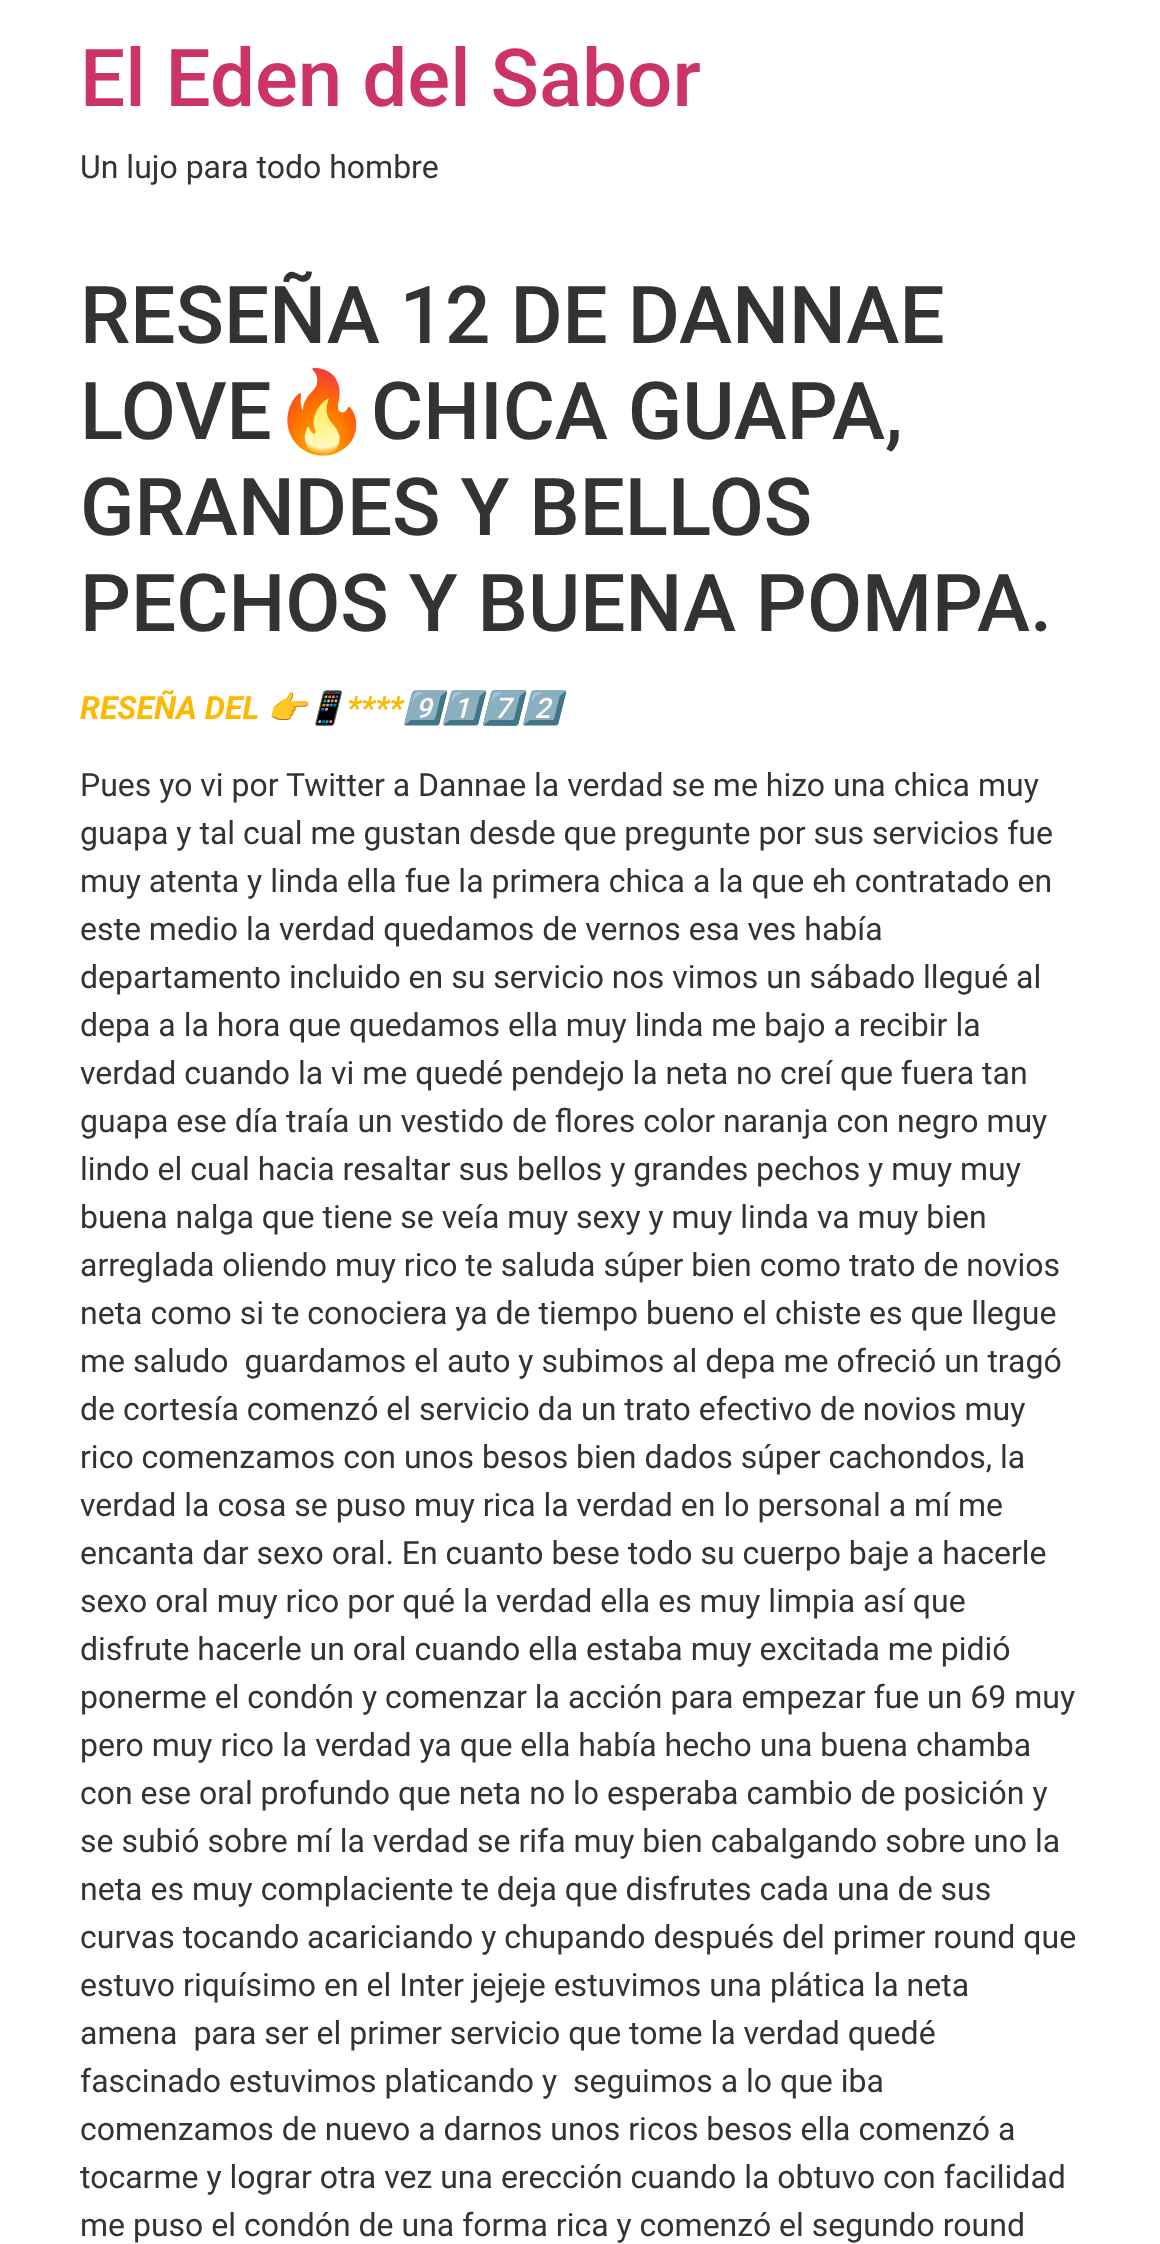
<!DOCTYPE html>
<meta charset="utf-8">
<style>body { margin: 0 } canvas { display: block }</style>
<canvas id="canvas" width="1160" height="2244"></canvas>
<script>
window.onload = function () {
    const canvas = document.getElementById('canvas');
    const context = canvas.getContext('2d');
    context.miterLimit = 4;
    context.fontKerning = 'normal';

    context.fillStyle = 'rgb(255, 255, 255)';
    context.fillRect(0, 0, 1160, 2244);
    context.font = '500 80px Roboto';
    context.fillStyle = 'rgb(204, 51, 102)';
    context.fillText('El Eden del Sabor', 80, 106);
    context.font = '32px Roboto';
    context.fillStyle = 'rgb(51, 51, 51)';
    context.fillText('Un lujo para todo hombre', 80, 178);
    context.font = '500 80px Roboto';
    context.fillText('RESEÑA 12 DE DANNAE', 80, 343);
    context.fillText('LOVE', 80, 439);
    context.font = '80px Noto Color Emoji';
    context.fillText('🔥', 272, 439);
    context.font = '500 80px Roboto';
    context.fillText('CHICA GUAPA,', 371, 439);
    context.fillText('GRANDES Y BELLOS', 80, 535);
    context.fillText('PECHOS Y BUENA POMPA.', 80, 631);
    context.font = 'italic bold 32px Roboto';
    context.fillStyle = 'rgb(252, 185, 0)';
    context.fillText('RESEÑA DEL', 80, 719);
    context.font = 'italic bold 32px Noto Color Emoji';
    context.fillText('👉📱', 267, 719);
    context.font = 'italic bold 32px Roboto';
    context.fillText('****', 347, 719);
    context.font = 'italic bold 32px Noto Color Emoji';
    context.fillStyle = 'rgb(6, 147, 227)';
    context.fillText('9️⃣1️⃣7️⃣2️⃣', 403, 719);
    context.font = '32px Roboto';
    context.fillStyle = 'rgb(51, 51, 51)';
    context.fillText('Pues yo vi por Twitter a Dannae la verdad se me hizo una chica muy', 80, 796);
    context.fillText('guapa y tal cual me gustan desde que pregunte por sus servicios fue', 80, 844);
    context.fillText('muy atenta y linda ella fue la primera chica a la que eh contratado en', 80, 892);
    context.fillText('este medio la verdad quedamos de vernos esa ves había', 80, 940);
    context.fillText('departamento incluido en su servicio nos vimos un sábado llegué al', 80, 988);
    context.fillText('depa a la hora que quedamos ella muy linda me bajo a recibir la', 80, 1036);
    context.fillText('verdad cuando la vi me quedé pendejo la neta no creí que fuera tan', 80, 1084);
    context.fillText('guapa ese día traía un vestido de flores color naranja con negro muy', 80, 1132);
    context.fillText('lindo el cual hacia resaltar sus bellos y grandes pechos y muy muy', 80, 1180);
    context.fillText('buena nalga que tiene se veía muy sexy y muy linda va muy bien', 80, 1228);
    context.fillText('arreglada oliendo muy rico te saluda súper bien como trato de novios', 80, 1276);
    context.fillText('neta como si te conociera ya de tiempo bueno el chiste es que llegue', 80, 1324);
    context.fillText('me saludo  guardamos el auto y subimos al depa me ofreció un tragó', 80, 1372);
    context.fillText('de cortesía comenzó el servicio da un trato efectivo de novios muy', 80, 1420);
    context.fillText('rico comenzamos con unos besos bien dados súper cachondos, la', 80, 1468);
    context.fillText('verdad la cosa se puso muy rica la verdad en lo personal a mí me', 80, 1516);
    context.fillText('encanta dar sexo oral. En cuanto bese todo su cuerpo baje a hacerle', 80, 1564);
    context.fillText('sexo oral muy rico por qué la verdad ella es muy limpia así que', 80, 1612);
    context.fillText('disfrute hacerle un oral cuando ella estaba muy excitada me pidió', 80, 1660);
    context.fillText('ponerme el condón y comenzar la acción para empezar fue un 69 muy', 80, 1708);
    context.fillText('pero muy rico la verdad ya que ella había hecho una buena chamba', 80, 1756);
    context.fillText('con ese oral profundo que neta no lo esperaba cambio de posición y', 80, 1804);
    context.fillText('se subió sobre mí la verdad se rifa muy bien cabalgando sobre uno la', 80, 1852);
    context.fillText('neta es muy complaciente te deja que disfrutes cada una de sus', 80, 1900);
    context.fillText('curvas tocando acariciando y chupando después del primer round que', 80, 1948);
    context.fillText('estuvo riquísimo en el Inter jejeje estuvimos una plática la neta', 80, 1996);
    context.fillText('amena  para ser el primer servicio que tome la verdad quedé', 80, 2044);
    context.fillText('fascinado estuvimos platicando y  seguimos a lo que iba', 80, 2092);
    context.fillText('comenzamos de nuevo a darnos unos ricos besos ella comenzó a', 80, 2140);
    context.fillText('tocarme y lograr otra vez una erección cuando la obtuvo con facilidad', 80, 2188);
    context.fillText('me puso el condón de una forma rica y comenzó el segundo round', 80, 2236);
};
</script>
